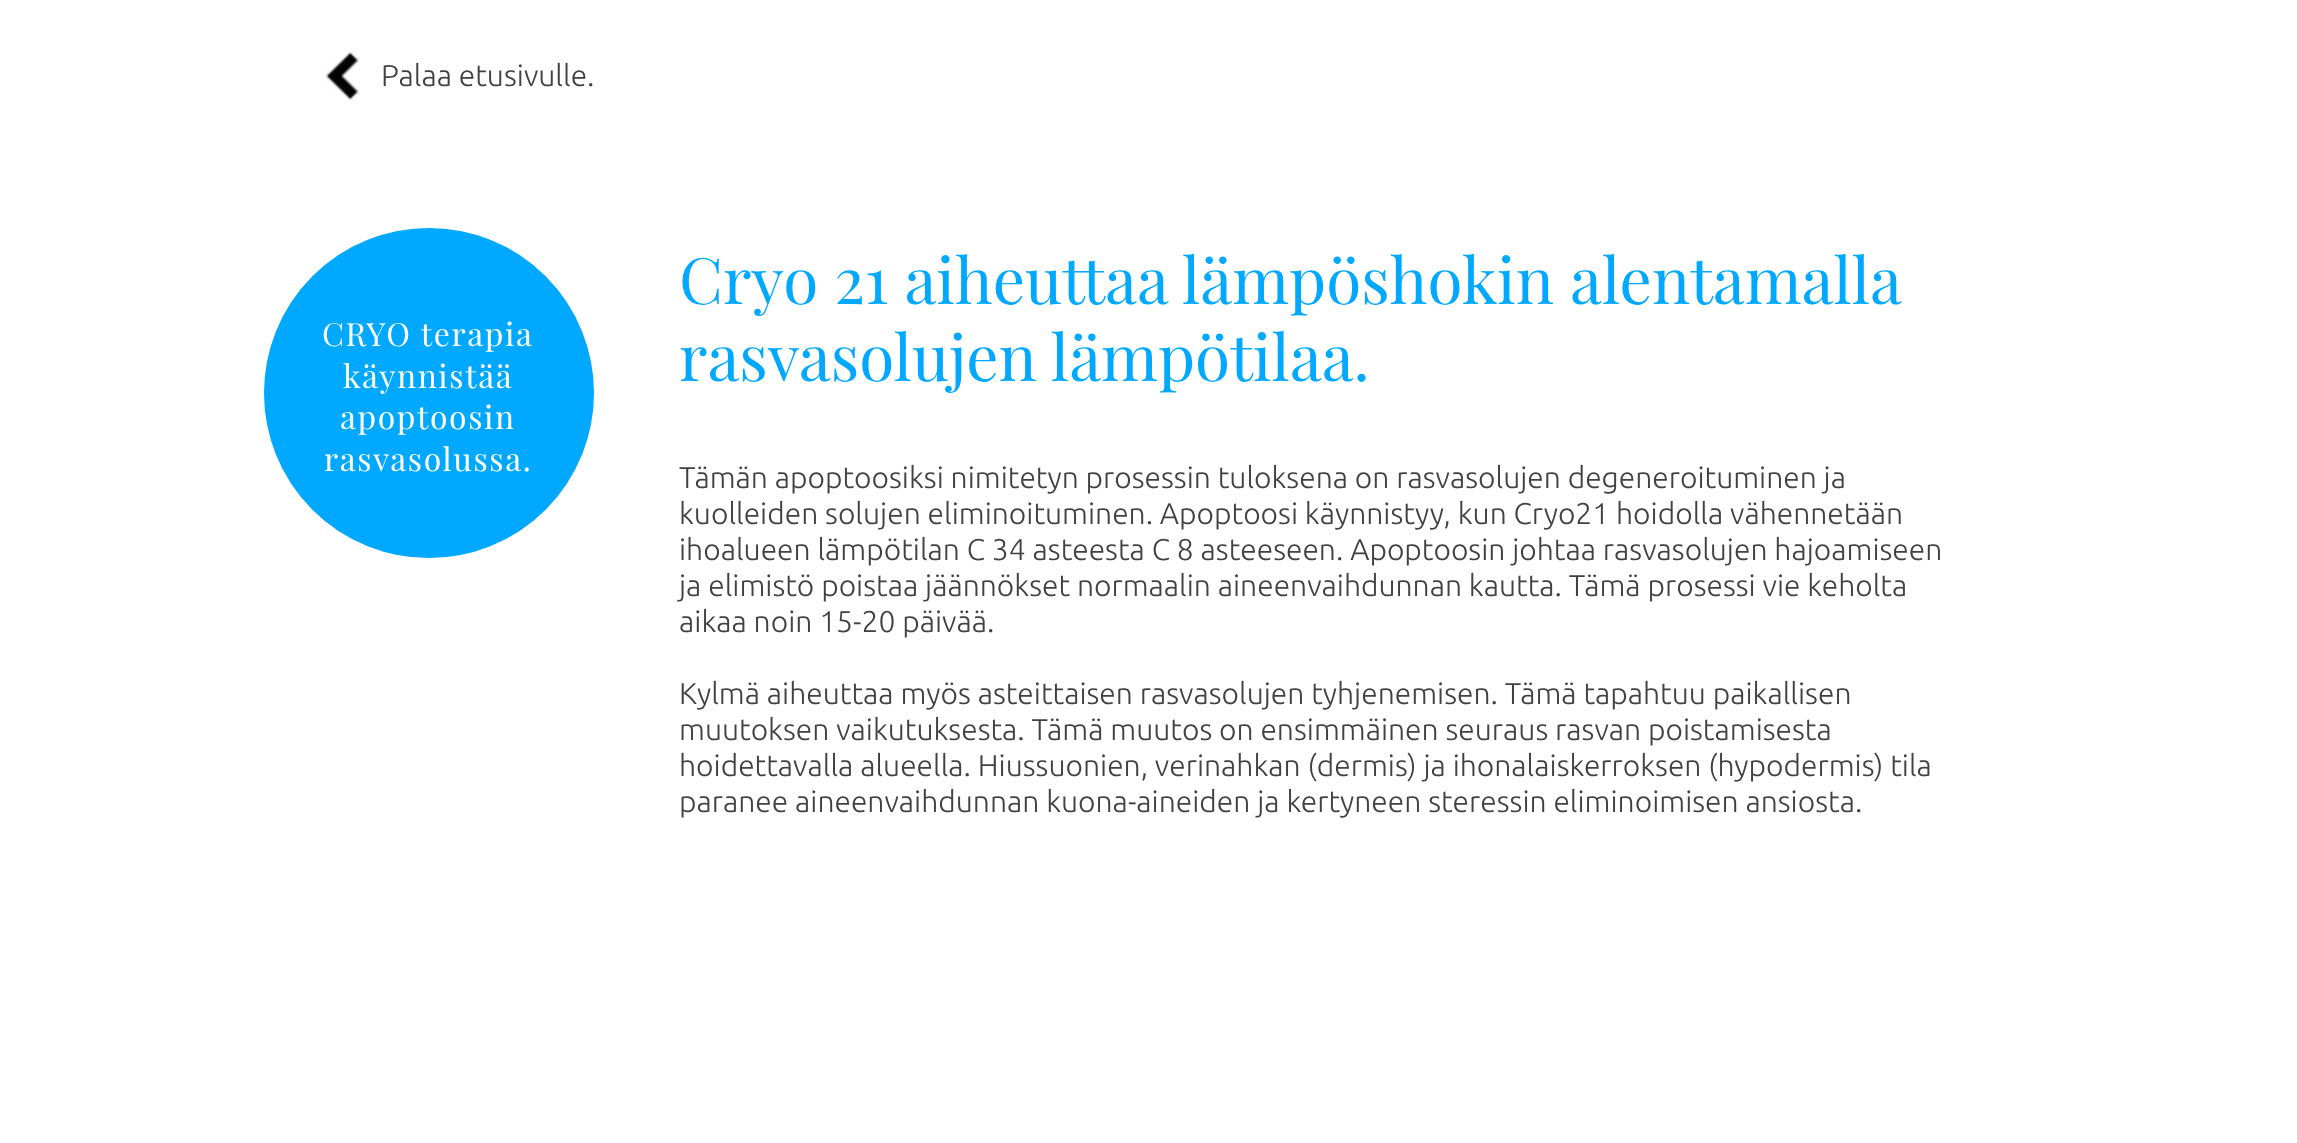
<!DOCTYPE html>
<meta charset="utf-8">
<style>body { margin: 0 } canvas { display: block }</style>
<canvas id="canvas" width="2297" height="1143"></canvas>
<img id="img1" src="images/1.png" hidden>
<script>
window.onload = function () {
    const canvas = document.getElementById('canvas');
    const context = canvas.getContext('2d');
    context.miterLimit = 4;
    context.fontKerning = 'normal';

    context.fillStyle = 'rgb(255, 255, 255)';
    context.fillRect(0, 0, 2297, 1143);
    context.drawImage(document.getElementById('img1'), 325, 51, 34, 50);
    context.fillStyle = 'rgb(0, 169, 255)';
    context.beginPath();
    context.arc(429, 393, 168, 0, 2 * Math.PI);
    context.fill();
    context.strokeStyle = 'rgb(255, 255, 255)';
    context.lineWidth = 6;
    context.stroke();
    context.font = '300 30px Ubuntu';
    context.fillStyle = 'rgb(65, 65, 65)';
    context.fillText('Palaa etusivulle.', 381, 86);
    context.letterSpacing = '1.6px';
    context.font = '32px Playfair Display';
    context.fillStyle = 'rgb(255, 255, 255)';
    context.fillText('CRYO terapia', 322, 346);
    context.fillText('käynnistää', 343, 388);
    context.fillText('apoptoosin', 340, 429);
    context.fillText('rasvasolussa.', 324, 471);
    context.letterSpacing = '0px';
    context.font = '64px Playfair Display';
    context.fillStyle = 'rgb(0, 169, 255)';
    context.fillText('Cryo 21 aiheuttaa lämpöshokin alentamalla', 679, 304);
    context.fillText('rasvasolujen lämpötilaa.', 679, 381);
    context.font = '300 30px Ubuntu';
    context.fillStyle = 'rgb(65, 65, 65)';
    context.fillText('Tämän apoptoosiksi nimitetyn prosessin tuloksena on rasvasolujen degeneroituminen ja', 679, 488);
    context.fillText('kuolleiden solujen eliminoituminen. Apoptoosi käynnistyy, kun Cryo21 hoidolla vähennetään', 679, 524);
    context.fillText('ihoalueen lämpötilan C 34 asteesta C 8 asteeseen. Apoptoosin johtaa rasvasolujen hajoamiseen', 679, 560);
    context.fillText('ja elimistö poistaa jäännökset normaalin aineenvaihdunnan kautta. Tämä prosessi vie keholta', 679, 596);
    context.fillText('aikaa noin 15-20 päivää.', 679, 632);
    context.fillText('Kylmä aiheuttaa myös asteittaisen rasvasolujen tyhjenemisen. Tämä tapahtuu paikallisen', 679, 704);
    context.fillText('muutoksen vaikutuksesta. Tämä muutos on ensimmäinen seuraus rasvan poistamisesta', 679, 740);
    context.fillText('hoidettavalla alueella. Hiussuonien, verinahkan (dermis) ja ihonalaiskerroksen (hypodermis) tila', 679, 776);
    context.fillText('paranee aineenvaihdunnan kuona-aineiden ja kertyneen steressin eliminoimisen ansiosta.', 679, 812);
};
</script>
